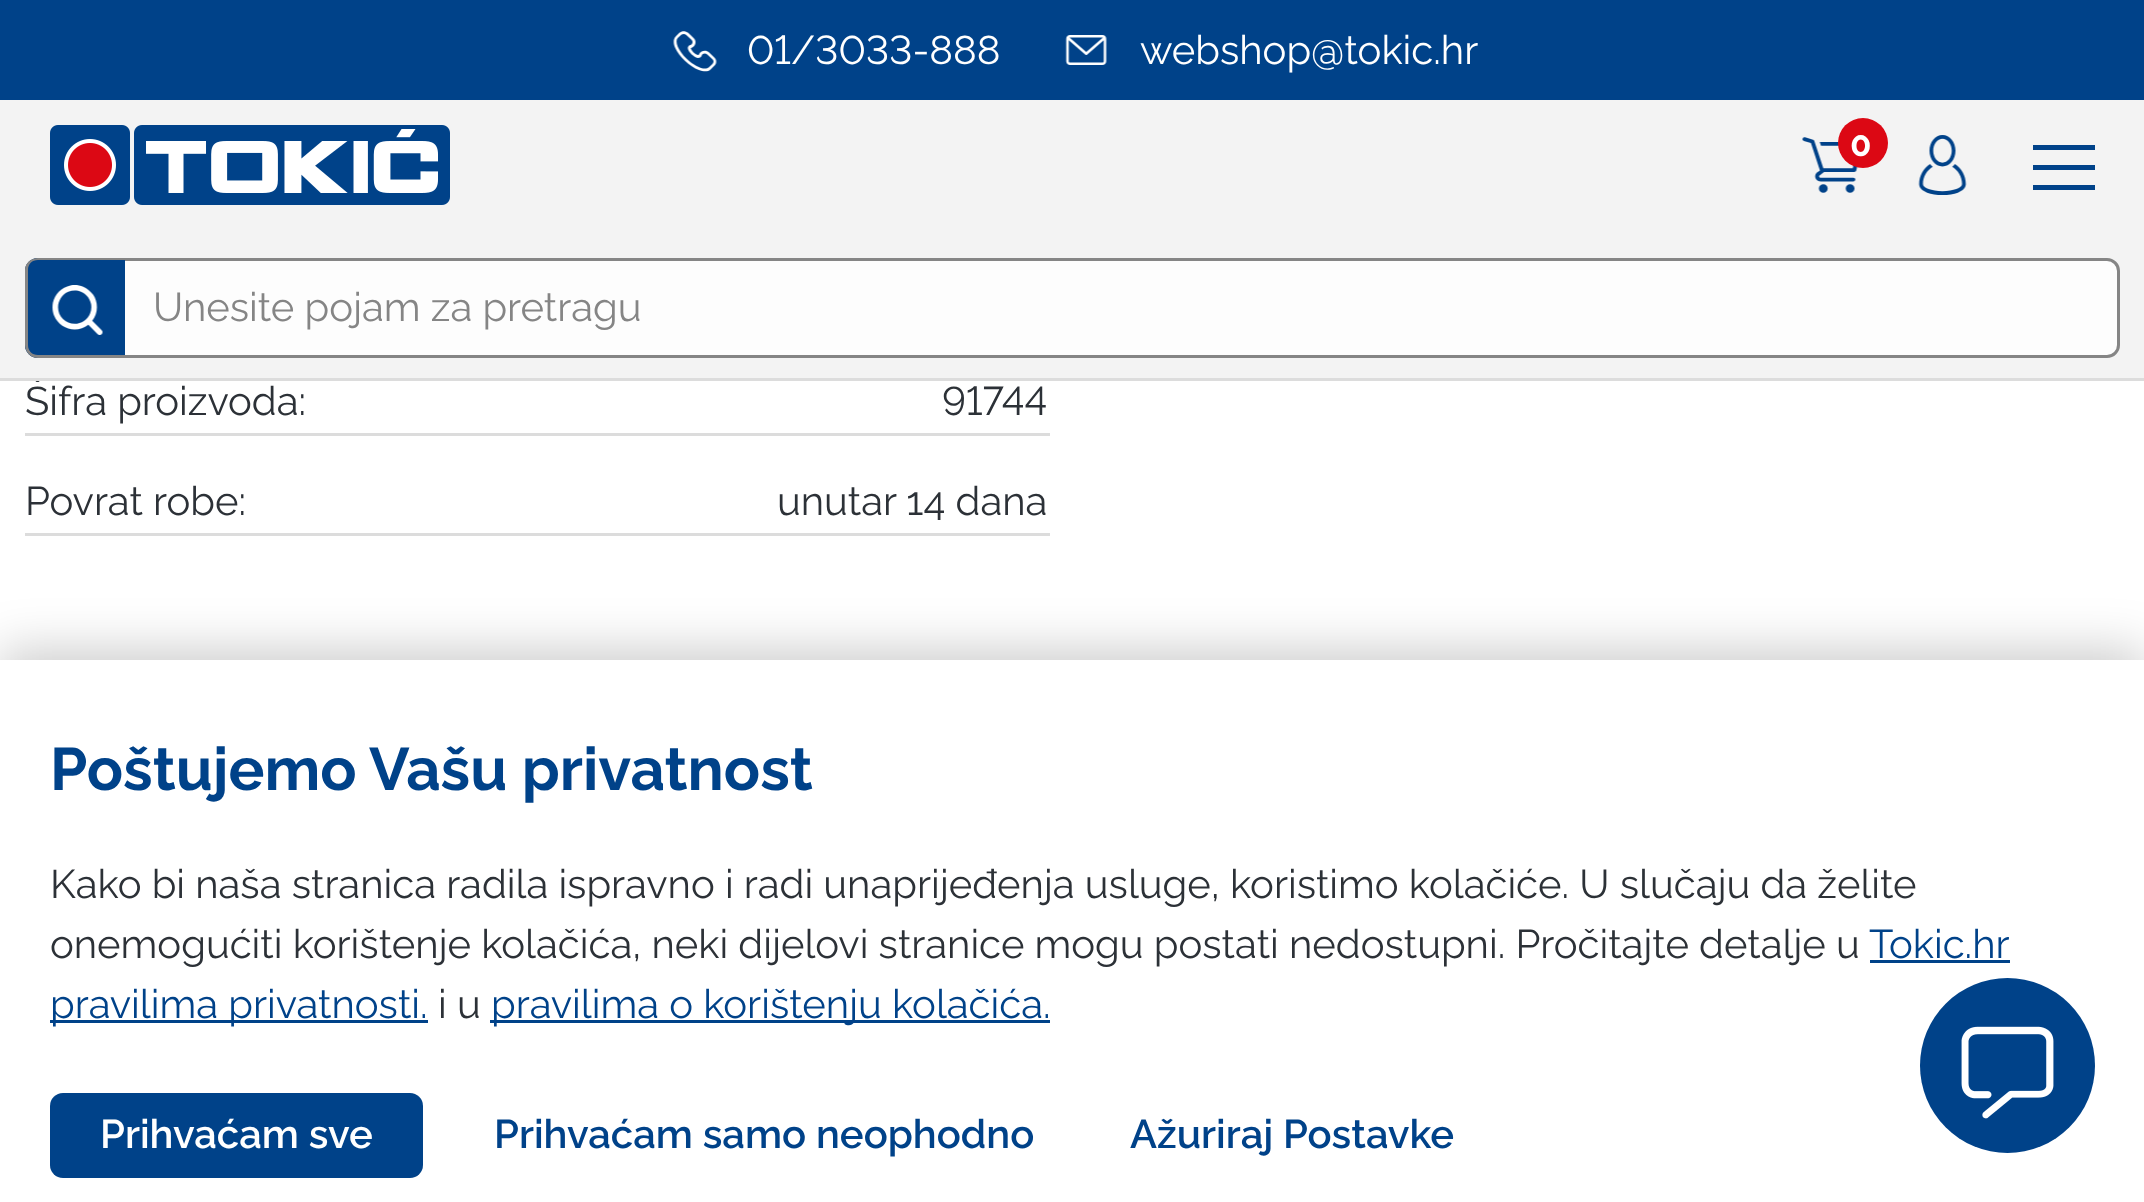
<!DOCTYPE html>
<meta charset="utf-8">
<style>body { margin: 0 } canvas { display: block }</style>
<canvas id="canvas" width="2144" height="1202"></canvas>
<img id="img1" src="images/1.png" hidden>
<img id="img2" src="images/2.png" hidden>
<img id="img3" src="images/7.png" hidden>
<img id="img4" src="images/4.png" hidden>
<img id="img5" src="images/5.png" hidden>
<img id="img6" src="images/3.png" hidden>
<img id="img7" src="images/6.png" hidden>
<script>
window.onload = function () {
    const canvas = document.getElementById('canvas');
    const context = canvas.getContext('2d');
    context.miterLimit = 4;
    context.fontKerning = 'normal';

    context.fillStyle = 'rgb(255, 255, 255)';
    context.fillRect(0, 0, 2144, 1202);
    context.fillStyle = 'rgb(0, 66, 137)';
    context.fillRect(0, 0, 2144, 100);
    context.drawImage(document.getElementById('img1'), 673, 31, 44, 41);
    context.drawImage(document.getElementById('img2'), 1065, 35, 42, 30);
    context.fillStyle = 'rgb(220, 220, 220)';
    context.fillRect(25, 433, 1025, 3);
    context.fillRect(25, 533, 1025, 3);
    context.fillStyle = 'rgba(0, 0, 0, 0.2)';
    context.filter = 'blur(25px)';
    context.beginPath();
    context.rect(0, 650, 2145, 543);
    context.fill();
    context.filter = 'none';
    context.fillStyle = 'rgb(255, 255, 255)';
    context.fillRect(0, 660, 2144, 542);
    context.fillStyle = 'rgb(0, 66, 137)';
    context.fillRect(1870, 960, 140, 3);
    context.fillRect(50, 1020, 378, 3);
    context.fillRect(490, 1020, 560, 3);
    context.beginPath();
    context.roundRect(50, 1093, 373, 85, 13);
    context.fill();
    context.beginPath();
    context.arc(2007.5, 1065.5, 87.5, 0, 2 * Math.PI);
    context.fill();
    context.drawImage(document.getElementById('img3'), 1961, 1026, 93, 93);
    context.font = '40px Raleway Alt';
    context.fillStyle = 'rgb(255, 255, 255)';
    context.fillText('01/3033-888', 747, 64);
    context.font = '40px Raleway';
    context.fillText('webshop@tokic.hr', 1140, 64);
    context.fillStyle = 'rgb(44, 49, 55)';
    context.fillText('Šifra proizvoda:', 25, 415);
    context.fillStyle = 'rgb(243, 243, 243)';
    context.fillRect(0, 100, 2144, 278);
    context.drawImage(document.getElementById('img4'), 1802, 137, 56, 56);
    context.fillStyle = 'rgb(220, 8, 20)';
    context.beginPath();
    context.arc(1863, 143, 25, 0, 2 * Math.PI);
    context.fill();
    context.font = 'bold 35px Raleway';
    context.fillStyle = 'rgb(255, 255, 255)';
    context.fillText('0', 1850, 156);
    context.drawImage(document.getElementById('img5'), 1918, 135, 49, 60);
    context.fillStyle = 'rgb(0, 66, 137)';
    context.fillRect(2033, 185, 62, 5);
    context.fillRect(2033, 145, 62, 5);
    context.fillRect(2033, 165, 62, 5);
    context.drawImage(document.getElementById('img6'), 50, 125, 400, 80);
    context.fillStyle = 'rgb(253, 253, 253)';
    context.beginPath();
    context.roundRect(26.5, 259.5, 2092, 97, 11.5);
    context.fill();
    context.strokeStyle = 'rgb(133, 133, 133)';
    context.lineWidth = 3;
    context.stroke();
    context.fillStyle = 'rgb(0, 66, 137)';
    context.beginPath();
    context.roundRect(25, 258, 100, 100, [13, 0, 0, 13]);
    context.fill();
    context.fillStyle = 'rgb(133, 133, 133)';
    context.beginPath();
    context.moveTo(38, 258);
    context.lineTo(125, 258);
    context.lineTo(125, 358);
    context.lineTo(38, 358);
    context.bezierCurveTo(31, 358, 25, 352, 25, 345);
    context.lineTo(25, 270);
    context.bezierCurveTo(25, 263, 31, 258, 38, 258);
    context.closePath();
    context.moveTo(38, 260);
    context.lineTo(125, 260);
    context.lineTo(125, 355);
    context.lineTo(38, 355);
    context.bezierCurveTo(32, 355, 28, 351, 28, 345);
    context.lineTo(28, 270);
    context.bezierCurveTo(28, 264, 32, 260, 38, 260);
    context.closePath();
    context.fill('evenodd');
    context.drawImage(document.getElementById('img7'), 52, 285, 51, 50);
    context.font = '40px Raleway';
    context.fillText('Unesite pojam za pretragu', 153, 321);
    context.fillStyle = 'rgb(220, 220, 220)';
    context.fillRect(0, 378, 2144, 3);
    context.font = '40px Raleway Alt';
    context.fillStyle = 'rgb(44, 49, 55)';
    context.fillText('91744', 942, 415);
    context.font = '40px Raleway';
    context.fillText('Povrat robe:', 25, 515);
    context.fillText('unutar 14 dana', 777, 515);
    context.font = 'bold 60px Raleway';
    context.fillStyle = 'rgb(0, 66, 137)';
    context.fillText('Poštujemo Vašu privatnost', 50, 790);
    context.font = '40px Raleway';
    context.fillStyle = 'rgb(44, 49, 55)';
    context.fillText('Kako bi naša stranica radila ispravno i radi unaprijeđenja usluge, koristimo kolačiće. U slučaju da želite', 50, 898);
    context.fillText('onemogućiti korištenje kolačića, neki dijelovi stranice mogu postati nedostupni. Pročitajte detalje u', 50, 958);
    context.fillStyle = 'rgb(0, 66, 137)';
    context.fillText('Tokic.hr', 1869, 958);
    context.fillText('pravilima privatnosti.', 50, 1018);
    context.fillStyle = 'rgb(44, 49, 55)';
    context.fillText('i u', 438, 1018);
    context.fillStyle = 'rgb(0, 66, 137)';
    context.fillText('pravilima o korištenju kolačića.', 491, 1018);
    context.font = '600 40px Raleway';
    context.fillStyle = 'rgb(255, 255, 255)';
    context.fillText('Prihvaćam sve', 100, 1148);
    context.fillStyle = 'rgb(0, 66, 137)';
    context.fillText('Prihvaćam samo neophodno', 494, 1148);
    context.fillText('Ažuriraj Postavke', 1130, 1148);
};
</script>
